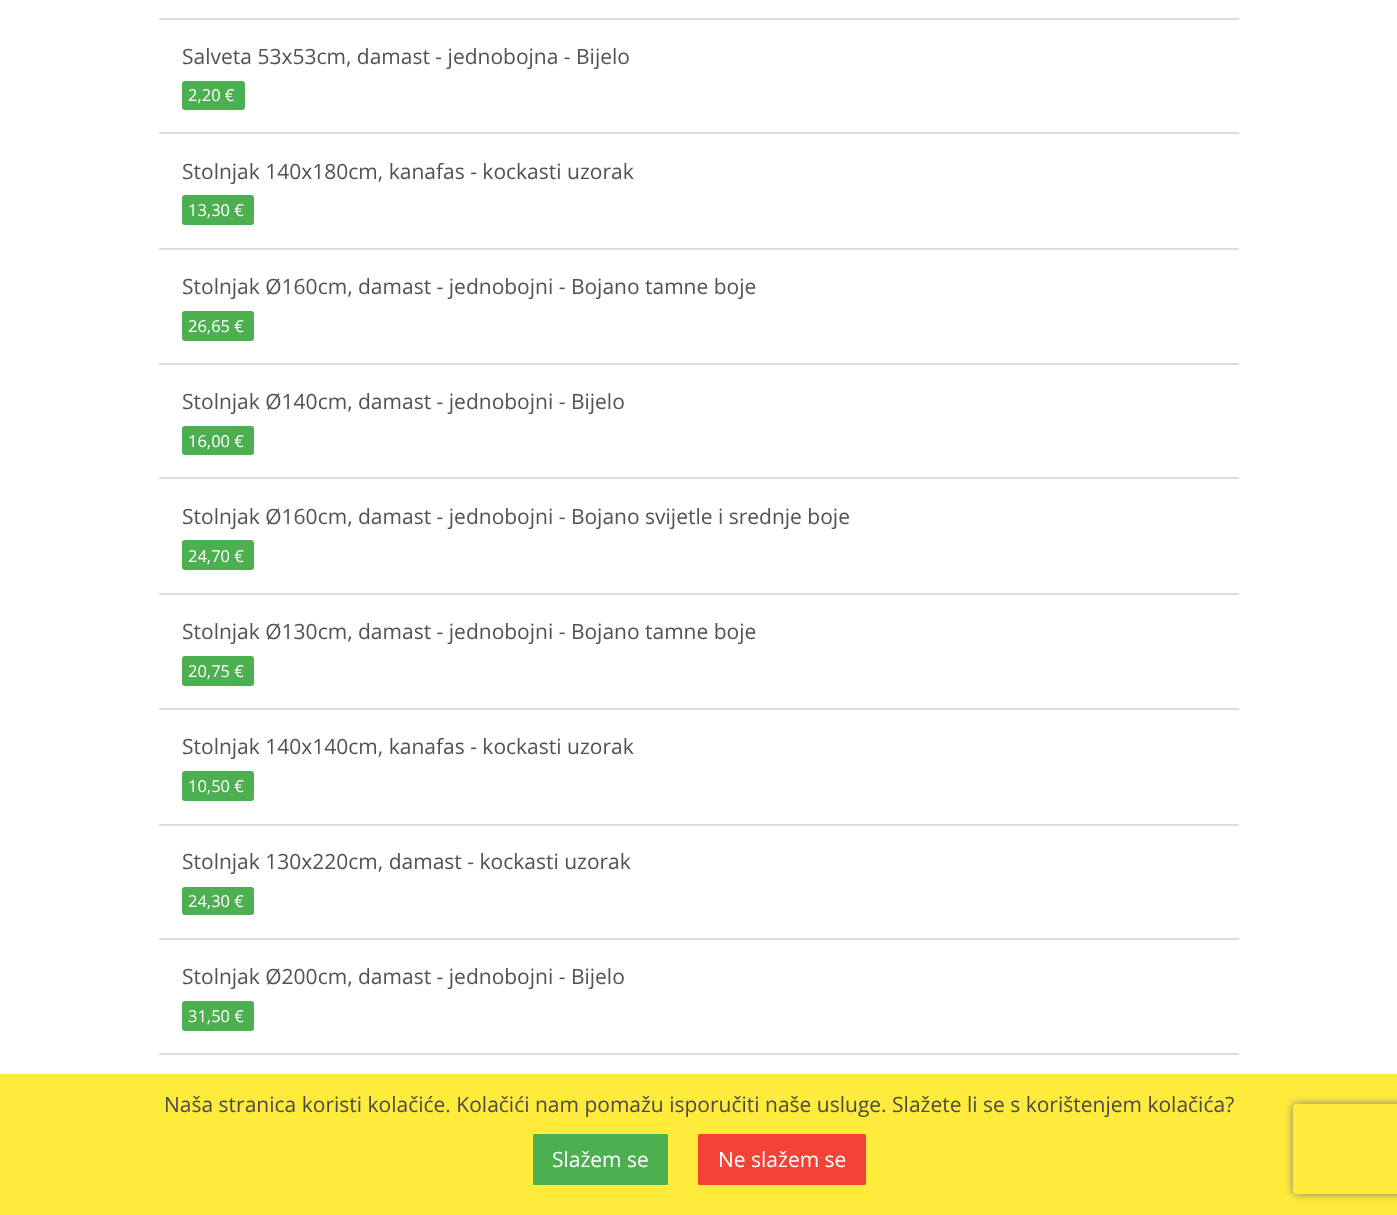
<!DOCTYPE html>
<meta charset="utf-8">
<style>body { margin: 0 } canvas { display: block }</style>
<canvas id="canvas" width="1397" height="1215"></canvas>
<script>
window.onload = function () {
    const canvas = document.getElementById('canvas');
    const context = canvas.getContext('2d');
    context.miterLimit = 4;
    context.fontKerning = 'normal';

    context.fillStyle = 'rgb(255, 255, 255)';
    context.fillRect(0, 0, 1397, 1215);
    context.fillStyle = 'rgb(221, 221, 221)';
    context.fillRect(159, 18, 1080, 2);
    context.fillRect(159, 132, 1080, 2);
    context.fillStyle = 'rgb(76, 175, 80)';
    context.beginPath();
    context.roundRect(183, 82, 61, 27, 2);
    context.fill();
    context.strokeStyle = 'rgb(76, 175, 80)';
    context.lineWidth = 2;
    context.stroke();
    context.fillStyle = 'rgb(221, 221, 221)';
    context.fillRect(159, 248, 1080, 2);
    context.fillStyle = 'rgb(76, 175, 80)';
    context.beginPath();
    context.roundRect(183, 196, 70, 28, 2);
    context.fill();
    context.stroke();
    context.fillStyle = 'rgb(221, 221, 221)';
    context.fillRect(159, 363, 1080, 2);
    context.fillStyle = 'rgb(76, 175, 80)';
    context.beginPath();
    context.roundRect(183, 312, 70, 28, 2);
    context.fill();
    context.stroke();
    context.fillStyle = 'rgb(221, 221, 221)';
    context.fillRect(159, 477, 1080, 2);
    context.fillStyle = 'rgb(76, 175, 80)';
    context.beginPath();
    context.roundRect(183, 427, 70, 27, 2);
    context.fill();
    context.stroke();
    context.fillStyle = 'rgb(221, 221, 221)';
    context.fillRect(159, 593, 1080, 2);
    context.fillStyle = 'rgb(76, 175, 80)';
    context.beginPath();
    context.roundRect(183, 541, 70, 28, 2);
    context.fill();
    context.stroke();
    context.fillStyle = 'rgb(221, 221, 221)';
    context.fillRect(159, 708, 1080, 2);
    context.fillStyle = 'rgb(76, 175, 80)';
    context.beginPath();
    context.roundRect(183, 657, 70, 28, 2);
    context.fill();
    context.stroke();
    context.fillStyle = 'rgb(221, 221, 221)';
    context.fillRect(159, 824, 1080, 2);
    context.fillStyle = 'rgb(76, 175, 80)';
    context.beginPath();
    context.roundRect(183, 772, 70, 28, 2);
    context.fill();
    context.stroke();
    context.fillStyle = 'rgb(221, 221, 221)';
    context.fillRect(159, 938, 1080, 2);
    context.fillStyle = 'rgb(76, 175, 80)';
    context.beginPath();
    context.roundRect(183, 888, 70, 26, 2);
    context.fill();
    context.stroke();
    context.fillStyle = 'rgb(221, 221, 221)';
    context.fillRect(159, 1053, 1080, 2);
    context.fillStyle = 'rgb(76, 175, 80)';
    context.beginPath();
    context.roundRect(183, 1002, 70, 28, 2);
    context.fill();
    context.stroke();
    context.fillStyle = 'rgb(255, 235, 59)';
    context.fillRect(0, 1074, 1397, 141);
    context.fillStyle = 'rgb(76, 175, 80)';
    context.beginPath();
    context.roundRect(534, 1135, 133, 49, 0.5);
    context.fill();
    context.stroke();
    context.fillStyle = 'rgb(244, 67, 54)';
    context.beginPath();
    context.roundRect(699, 1135, 166, 49, 0.5);
    context.fill();
    context.strokeStyle = 'rgb(244, 67, 54)';
    context.stroke();
    context.save();
    context.beginPath();
    context.moveTo(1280, 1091);
    context.lineTo(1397, 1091);
    context.lineTo(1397, 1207);
    context.lineTo(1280, 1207);
    context.closePath();
    context.moveTo(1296, 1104);
    context.lineTo(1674, 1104);
    context.bezierCurveTo(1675.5, 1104, 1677, 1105.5, 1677, 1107);
    context.lineTo(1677, 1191);
    context.bezierCurveTo(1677, 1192.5, 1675.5, 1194, 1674, 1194);
    context.lineTo(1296, 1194);
    context.bezierCurveTo(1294.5, 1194, 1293, 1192.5, 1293, 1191);
    context.lineTo(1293, 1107);
    context.bezierCurveTo(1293, 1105.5, 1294.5, 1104, 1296, 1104);
    context.closePath();
    context.clip('evenodd');
    context.fillStyle = 'rgb(128, 128, 128)';
    context.filter = 'blur(4px)';
    context.beginPath();
    context.roundRect(1293, 1104, 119, 90, 3);
    context.fill();
    context.filter = 'none';
    context.restore();
    context.font = '21px Open Sans';
    context.fillStyle = 'rgb(82, 82, 82)';
    context.fillText('Salveta 53x53cm, damast - jednobojna - Bijelo', 182, 64);
    context.font = '16.5px Open Sans';
    context.fillStyle = 'rgb(255, 255, 255)';
    context.fillText('2,20 €', 188, 101);
    context.font = '21px Open Sans';
    context.fillStyle = 'rgb(82, 82, 82)';
    context.fillText('Stolnjak 140x180cm, kanafas - kockasti uzorak', 182, 179);
    context.font = '16.5px Open Sans';
    context.fillStyle = 'rgb(255, 255, 255)';
    context.fillText('13,30 €', 188, 216);
    context.font = '21px Open Sans';
    context.fillStyle = 'rgb(82, 82, 82)';
    context.fillText('Stolnjak Ø160cm, damast - jednobojni - Bojano tamne boje', 182, 294);
    context.font = '16.5px Open Sans';
    context.fillStyle = 'rgb(255, 255, 255)';
    context.fillText('26,65 €', 188, 332);
    context.font = '21px Open Sans';
    context.fillStyle = 'rgb(82, 82, 82)';
    context.fillText('Stolnjak Ø140cm, damast - jednobojni - Bijelo', 182, 409);
    context.font = '16.5px Open Sans';
    context.fillStyle = 'rgb(255, 255, 255)';
    context.fillText('16,00 €', 188, 447);
    context.font = '21px Open Sans';
    context.fillStyle = 'rgb(82, 82, 82)';
    context.fillText('Stolnjak Ø160cm, damast - jednobojni - Bojano svijetle i srednje boje', 182, 524);
    context.font = '16.5px Open Sans';
    context.fillStyle = 'rgb(255, 255, 255)';
    context.fillText('24,70 €', 188, 562);
    context.font = '21px Open Sans';
    context.fillStyle = 'rgb(82, 82, 82)';
    context.fillText('Stolnjak Ø130cm, damast - jednobojni - Bojano tamne boje', 182, 639);
    context.font = '16.5px Open Sans';
    context.fillStyle = 'rgb(255, 255, 255)';
    context.fillText('20,75 €', 188, 677);
    context.font = '21px Open Sans';
    context.fillStyle = 'rgb(82, 82, 82)';
    context.fillText('Stolnjak 140x140cm, kanafas - kockasti uzorak', 182, 754);
    context.font = '16.5px Open Sans';
    context.fillStyle = 'rgb(255, 255, 255)';
    context.fillText('10,50 €', 188, 792);
    context.font = '21px Open Sans';
    context.fillStyle = 'rgb(82, 82, 82)';
    context.fillText('Stolnjak 130x220cm, damast - kockasti uzorak', 182, 869);
    context.font = '16.5px Open Sans';
    context.fillStyle = 'rgb(255, 255, 255)';
    context.fillText('24,30 €', 188, 907);
    context.font = '21px Open Sans';
    context.fillStyle = 'rgb(82, 82, 82)';
    context.fillText('Stolnjak Ø200cm, damast - jednobojni - Bijelo', 182, 984);
    context.font = '16.5px Open Sans';
    context.fillStyle = 'rgb(255, 255, 255)';
    context.fillText('31,50 €', 188, 1022);
    context.font = '21px Open Sans';
    context.fillStyle = 'rgb(74, 74, 74)';
    context.fillText('Naša stranica koristi kolačiće. Kolačići nam pomažu isporučiti naše usluge. Slažete li se s korištenjem kolačića?', 164, 1112);
    context.fillStyle = 'rgb(255, 255, 255)';
    context.fillText('Slažem se', 552, 1167);
    context.fillText('Ne slažem se', 718, 1167);
};
</script>
